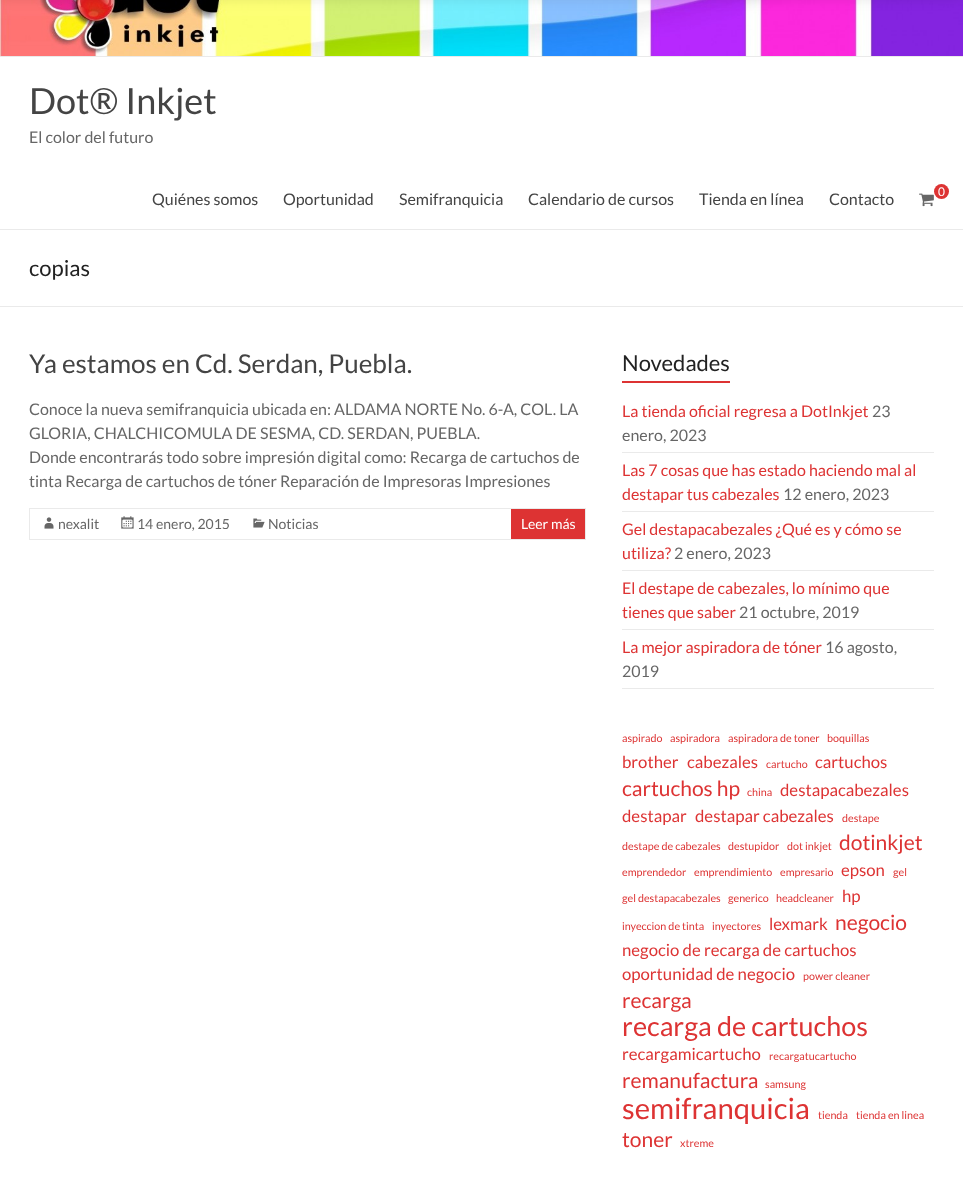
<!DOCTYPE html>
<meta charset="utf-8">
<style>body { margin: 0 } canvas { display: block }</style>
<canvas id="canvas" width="963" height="1200"></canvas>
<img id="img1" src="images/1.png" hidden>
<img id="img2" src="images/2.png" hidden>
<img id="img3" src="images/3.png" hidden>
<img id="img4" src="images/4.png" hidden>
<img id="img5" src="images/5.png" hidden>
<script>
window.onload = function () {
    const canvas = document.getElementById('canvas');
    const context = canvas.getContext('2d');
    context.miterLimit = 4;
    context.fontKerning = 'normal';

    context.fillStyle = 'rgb(255, 255, 255)';
    context.fillRect(0, 0, 963, 1200);
    context.drawImage(document.getElementById('img1'), 0, 0, 963, 56);
    context.fillStyle = 'rgba(0, 0, 0, 0.2)';
    context.filter = 'blur(8px)';
    context.beginPath();
    context.rect(0, -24, 963, 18);
    context.fill();
    context.filter = 'none';
    context.fillStyle = 'rgb(234, 234, 234)';
    context.fillRect(0, 56, 963, 1);
    context.fillRect(0, 229, 963, 1);
    context.fillStyle = 'rgb(221, 51, 51)';
    context.beginPath();
    context.arc(941.5, 191.5, 7.5, 0, 2 * Math.PI);
    context.fill();
    context.drawImage(document.getElementById('img2'), 919, 193, 15, 14);
    context.fillStyle = 'rgb(234, 234, 234)';
    context.fillRect(0, 306, 963, 1);
    context.strokeStyle = 'rgb(234, 234, 234)';
    context.strokeRect(29.5, 508.5, 556, 31);
    context.drawImage(document.getElementById('img3'), 44, 517, 10, 12);
    context.drawImage(document.getElementById('img4'), 121, 516, 13, 13);
    context.drawImage(document.getElementById('img5'), 253, 518, 12, 10);
    context.fillStyle = 'rgb(221, 51, 51)';
    context.fillRect(511, 509, 74, 30);
    context.fillRect(622, 381, 108, 2);
    context.fillStyle = 'rgb(234, 234, 234)';
    context.fillRect(622, 452, 312, 1);
    context.fillRect(622, 511, 312, 1);
    context.fillRect(622, 570, 312, 1);
    context.fillRect(622, 629, 312, 1);
    context.fillRect(622, 688, 312, 1);
    context.font = '36px Lato';
    context.fillStyle = 'rgb(68, 68, 68)';
    context.fillText('Dot® Inkjet', 29, 114);
    context.font = '16px Lato';
    context.fillStyle = 'rgb(102, 102, 102)';
    context.fillText('El color del futuro', 29, 143);
    context.font = '12px Lato';
    context.fillStyle = 'rgb(255, 255, 255)';
    context.fillText('0', 938, 196);
    context.font = '16px Lato';
    context.fillStyle = 'rgb(68, 68, 68)';
    context.fillText('Quiénes somos', 152, 205);
    context.fillText('Oportunidad', 283, 205);
    context.fillText('Semifranquicia', 399, 205);
    context.fillText('Calendario de cursos', 528, 205);
    context.fillText('Tienda en línea', 699, 205);
    context.fillText('Contacto', 829, 205);
    context.font = '22px Lato';
    context.fillStyle = 'rgb(34, 34, 34)';
    context.fillText('copias', 29, 276);
    context.font = '26px Lato';
    context.fillStyle = 'rgb(68, 68, 68)';
    context.fillText('Ya estamos en Cd. Serdan, Puebla.', 29, 373);
    context.font = '16px Lato';
    context.fillStyle = 'rgb(102, 102, 102)';
    context.fillText('Conoce la nueva semifranquicia ubicada en: ALDAMA NORTE No. 6-A, COL. LA', 29, 415);
    context.fillText('GLORIA, CHALCHICOMULA DE SESMA, CD. SERDAN, PUEBLA.', 29, 439);
    context.fillText('Donde encontrarás todo sobre impresión digital como: Recarga de cartuchos de', 29, 463);
    context.fillText('tinta Recarga de cartuchos de tóner Reparación de Impresoras Impresiones', 29, 487);
    context.font = '14px Lato';
    context.fillText('nexalit', 58, 529);
    context.fillText('14 enero, 2015', 137, 529);
    context.fillText('Noticias', 268, 529);
    context.fillStyle = 'rgb(255, 255, 255)';
    context.fillText('Leer más', 521, 529);
    context.font = '22px Lato';
    context.fillStyle = 'rgb(34, 34, 34)';
    context.fillText('Novedades', 622, 371);
    context.font = '16px Lato';
    context.fillStyle = 'rgb(221, 51, 51)';
    context.fillText('La tienda oficial regresa a DotInkjet', 622, 417);
    context.fillStyle = 'rgb(102, 102, 102)';
    context.fillText('23', 872, 417);
    context.fillText('enero, 2023', 622, 441);
    context.fillStyle = 'rgb(221, 51, 51)';
    context.fillText('Las 7 cosas que has estado haciendo mal al', 622, 476);
    context.fillText('destapar tus cabezales', 622, 500);
    context.fillStyle = 'rgb(102, 102, 102)';
    context.fillText('12 enero, 2023', 783, 500);
    context.fillStyle = 'rgb(221, 51, 51)';
    context.fillText('Gel destapacabezales ¿Qué es y cómo se', 622, 535);
    context.fillText('utiliza?', 622, 559);
    context.fillStyle = 'rgb(102, 102, 102)';
    context.fillText('2 enero, 2023', 674, 559);
    context.fillStyle = 'rgb(221, 51, 51)';
    context.fillText('El destape de cabezales, lo mínimo que', 622, 594);
    context.fillText('tienes que saber', 622, 618);
    context.fillStyle = 'rgb(102, 102, 102)';
    context.fillText('21 octubre, 2019', 739, 618);
    context.fillStyle = 'rgb(221, 51, 51)';
    context.fillText('La mejor aspiradora de tóner', 622, 653);
    context.fillStyle = 'rgb(102, 102, 102)';
    context.fillText('16 agosto,', 825, 653);
    context.fillText('2019', 622, 677);
    context.font = '10.75px Lato';
    context.fillStyle = 'rgb(221, 51, 51)';
    context.fillText('aspirado', 622, 742);
    context.fillText('aspiradora', 670, 742);
    context.fillText('aspiradora de toner', 728, 742);
    context.fillText('boquillas', 827, 742);
    context.font = '16.75px Lato';
    context.fillText('brother', 622, 768);
    context.fillText('cabezales', 687, 768);
    context.font = '10.75px Lato';
    context.fillText('cartucho', 766, 768);
    context.font = '16.75px Lato';
    context.fillText('cartuchos', 815, 768);
    context.font = '21px Lato';
    context.fillText('cartuchos hp', 622, 796);
    context.font = '10.75px Lato';
    context.fillText('china', 747, 796);
    context.font = '16.75px Lato';
    context.fillText('destapacabezales', 780, 796);
    context.fillText('destapar', 622, 822);
    context.fillText('destapar cabezales', 695, 822);
    context.font = '10.75px Lato';
    context.fillText('destape', 842, 822);
    context.fillText('destape de cabezales', 622, 850);
    context.fillText('destupidor', 728, 850);
    context.fillText('dot inkjet', 787, 850);
    context.font = '21px Lato';
    context.fillText('dotinkjet', 839, 850);
    context.font = '10.75px Lato';
    context.fillText('emprendedor', 622, 876);
    context.fillText('emprendimiento', 694, 876);
    context.fillText('empresario', 780, 876);
    context.font = '16.75px Lato';
    context.fillText('epson', 841, 876);
    context.font = '10.75px Lato';
    context.fillText('gel', 893, 876);
    context.fillText('gel destapacabezales', 622, 902);
    context.fillText('generico', 728, 902);
    context.fillText('headcleaner', 776, 902);
    context.font = '16.75px Lato';
    context.fillText('hp', 842, 902);
    context.font = '10.75px Lato';
    context.fillText('inyeccion de tinta', 622, 930);
    context.fillText('inyectores', 712, 930);
    context.font = '16.75px Lato';
    context.fillText('lexmark', 769, 930);
    context.font = '21px Lato';
    context.fillText('negocio', 835, 930);
    context.font = '16.75px Lato';
    context.fillText('negocio de recarga de cartuchos', 622, 956);
    context.fillText('oportunidad de negocio', 622, 980);
    context.font = '10.75px Lato';
    context.fillText('power cleaner', 803, 980);
    context.font = '21px Lato';
    context.fillText('recarga', 622, 1008);
    context.font = '27px Lato';
    context.fillText('recarga de cartuchos', 622, 1036);
    context.font = '16.75px Lato';
    context.fillText('recargamicartucho', 622, 1060);
    context.font = '10.75px Lato';
    context.fillText('recargatucartucho', 769, 1060);
    context.font = '21px Lato';
    context.fillText('remanufactura', 622, 1088);
    context.font = '10.75px Lato';
    context.fillText('samsung', 765, 1088);
    context.font = '29.25px Lato';
    context.fillText('semifranquicia', 622, 1119);
    context.font = '10.75px Lato';
    context.fillText('tienda', 818, 1119);
    context.fillText('tienda en linea', 856, 1119);
    context.font = '21px Lato';
    context.fillText('toner', 622, 1147);
    context.font = '10.75px Lato';
    context.fillText('xtreme', 680, 1147);
};
</script>
